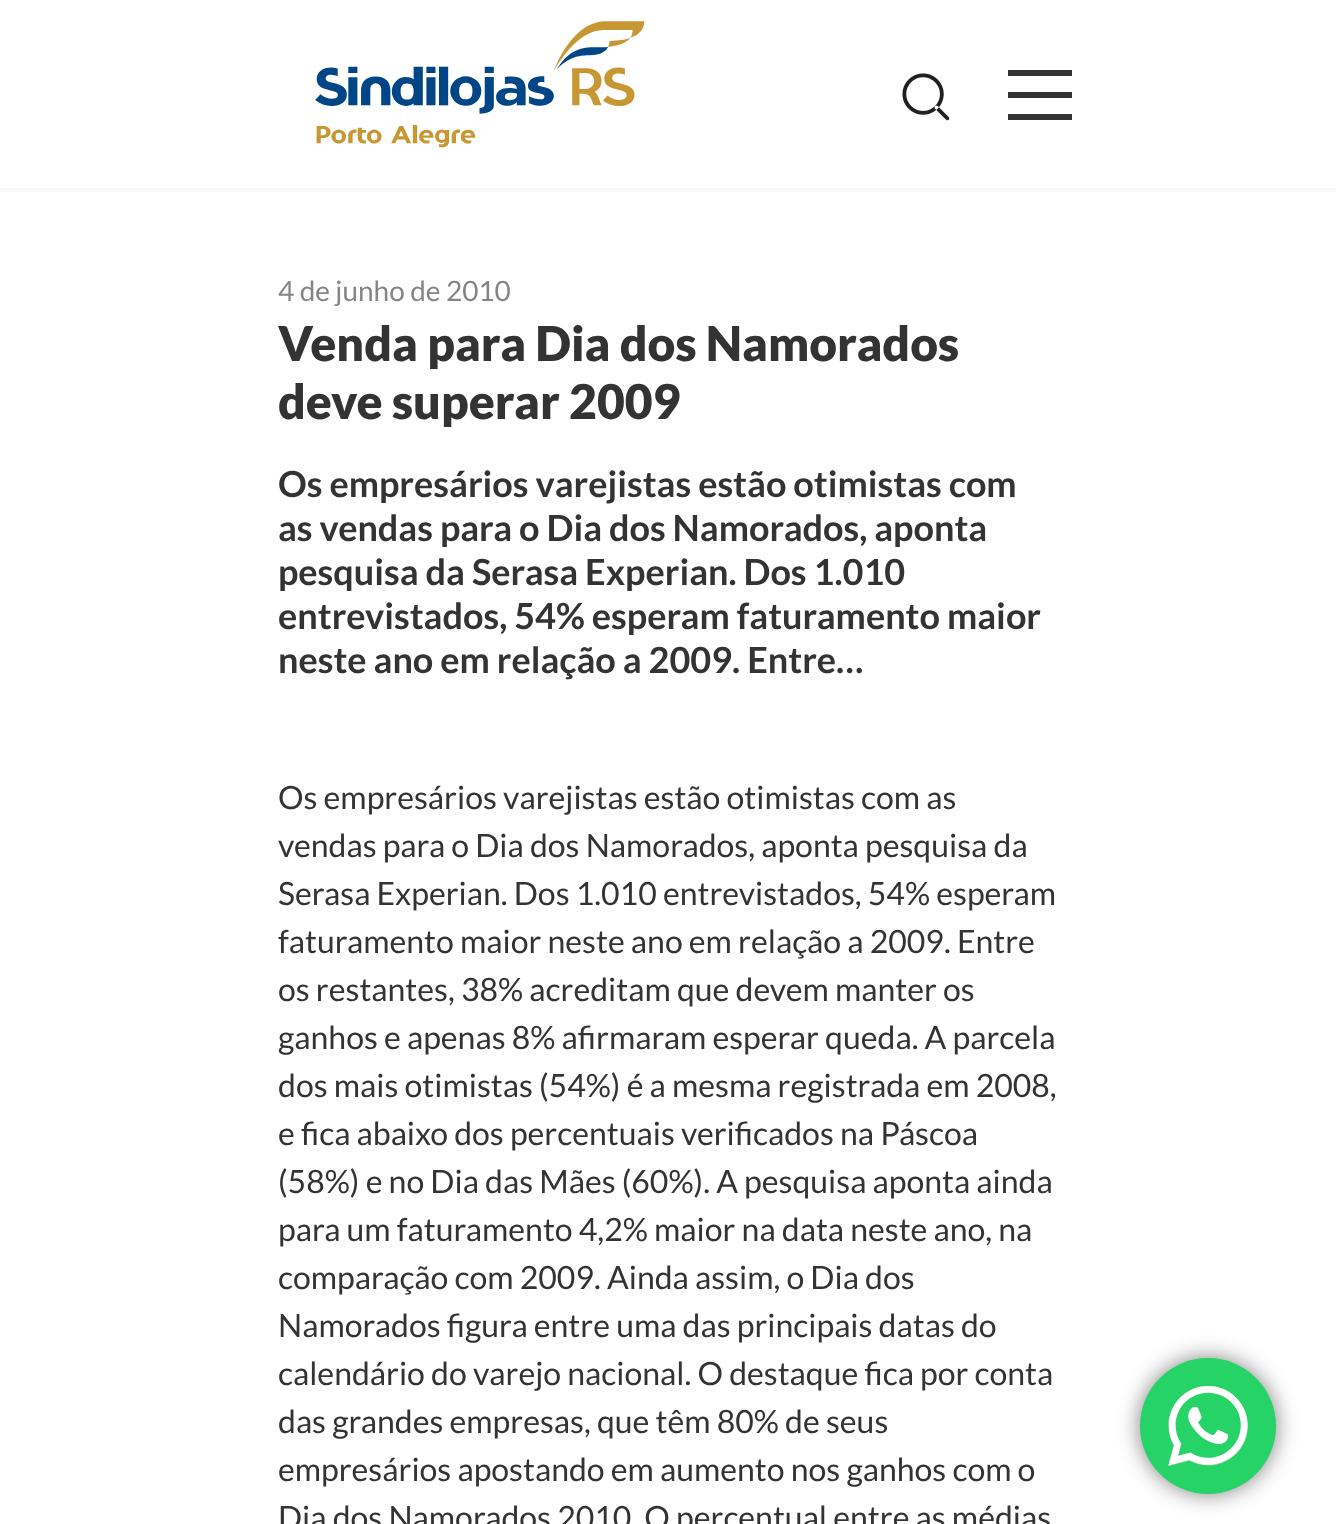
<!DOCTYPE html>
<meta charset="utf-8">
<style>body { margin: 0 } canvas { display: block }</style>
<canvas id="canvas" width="1336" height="1524"></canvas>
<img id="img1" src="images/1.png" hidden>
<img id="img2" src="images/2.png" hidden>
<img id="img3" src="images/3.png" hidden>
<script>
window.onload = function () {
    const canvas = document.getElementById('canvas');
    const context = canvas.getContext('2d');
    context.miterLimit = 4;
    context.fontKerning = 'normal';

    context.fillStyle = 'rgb(255, 255, 255)';
    context.fillRect(0, 0, 1336, 1524);
    context.fillStyle = 'rgb(246, 248, 249)';
    context.fillRect(0, 188, 1336, 4);
    context.drawImage(document.getElementById('img1'), 315, 21, 330, 127);
    context.drawImage(document.getElementById('img2'), 902, 73, 48, 48);
    context.fillStyle = 'rgb(51, 51, 51)';
    context.fillRect(1008, 70, 64, 6);
    context.fillRect(1008, 92, 64, 6);
    context.fillRect(1008, 114, 64, 6);
    context.fillStyle = 'rgba(0, 0, 0, 0.5)';
    context.filter = 'blur(11px)';
    context.beginPath();
    context.roundRect(1140, 1358, 136, 136, 68);
    context.fill();
    context.filter = 'none';
    context.fillStyle = 'rgb(37, 211, 102)';
    context.beginPath();
    context.arc(1208, 1426, 68, 0, 2 * Math.PI);
    context.fill();
    context.drawImage(document.getElementById('img3'), 1168, 1386, 80, 80);
    context.font = '28px Lato';
    context.fillStyle = 'rgb(133, 133, 133)';
    context.fillText('4 de junho de 2010', 278, 301);
    context.font = '900 48px Lato';
    context.fillStyle = 'rgb(51, 51, 51)';
    context.fillText('Venda para Dia dos Namorados', 278, 361);
    context.fillText('deve superar 2009', 278, 419);
    context.font = 'bold 36px Lato';
    context.fillText('Os empresários varejistas estão otimistas com', 278, 497);
    context.fillText('as vendas para o Dia dos Namorados, aponta', 278, 541);
    context.fillText('pesquisa da Serasa Experian. Dos 1.010', 278, 585);
    context.fillText('entrevistados, 54% esperam faturamento maior', 278, 629);
    context.fillText('neste ano em relação a 2009. Entre…', 278, 673);
    context.font = '32px Lato';
    context.fillText('Os empresários varejistas estão otimistas com as', 278, 809);
    context.fillText('vendas para o Dia dos Namorados, aponta pesquisa da', 278, 857);
    context.fillText('Serasa Experian. Dos 1.010 entrevistados, 54% esperam', 278, 905);
    context.fillText('faturamento maior neste ano em relação a 2009. Entre', 278, 953);
    context.fillText('os restantes, 38% acreditam que devem manter os', 278, 1001);
    context.fillText('ganhos e apenas 8% afirmaram esperar queda. A parcela', 278, 1049);
    context.fillText('dos mais otimistas (54%) é a mesma registrada em 2008,', 278, 1097);
    context.fillText('e fica abaixo dos percentuais verificados na Páscoa', 278, 1145);
    context.fillText('(58%) e no Dia das Mães (60%). A pesquisa aponta ainda', 278, 1193);
    context.fillText('para um faturamento 4,2% maior na data neste ano, na', 278, 1241);
    context.fillText('comparação com 2009. Ainda assim, o Dia dos', 278, 1289);
    context.fillText('Namorados figura entre uma das principais datas do', 278, 1337);
    context.fillText('calendário do varejo nacional. O destaque fica por conta', 278, 1385);
    context.fillText('das grandes empresas, que têm 80% de seus', 278, 1433);
    context.fillText('empresários apostando em aumento nos ganhos com o', 278, 1481);
    context.fillText('Dia dos Namorados 2010. O percentual entre as médias', 278, 1529);
};
</script>
